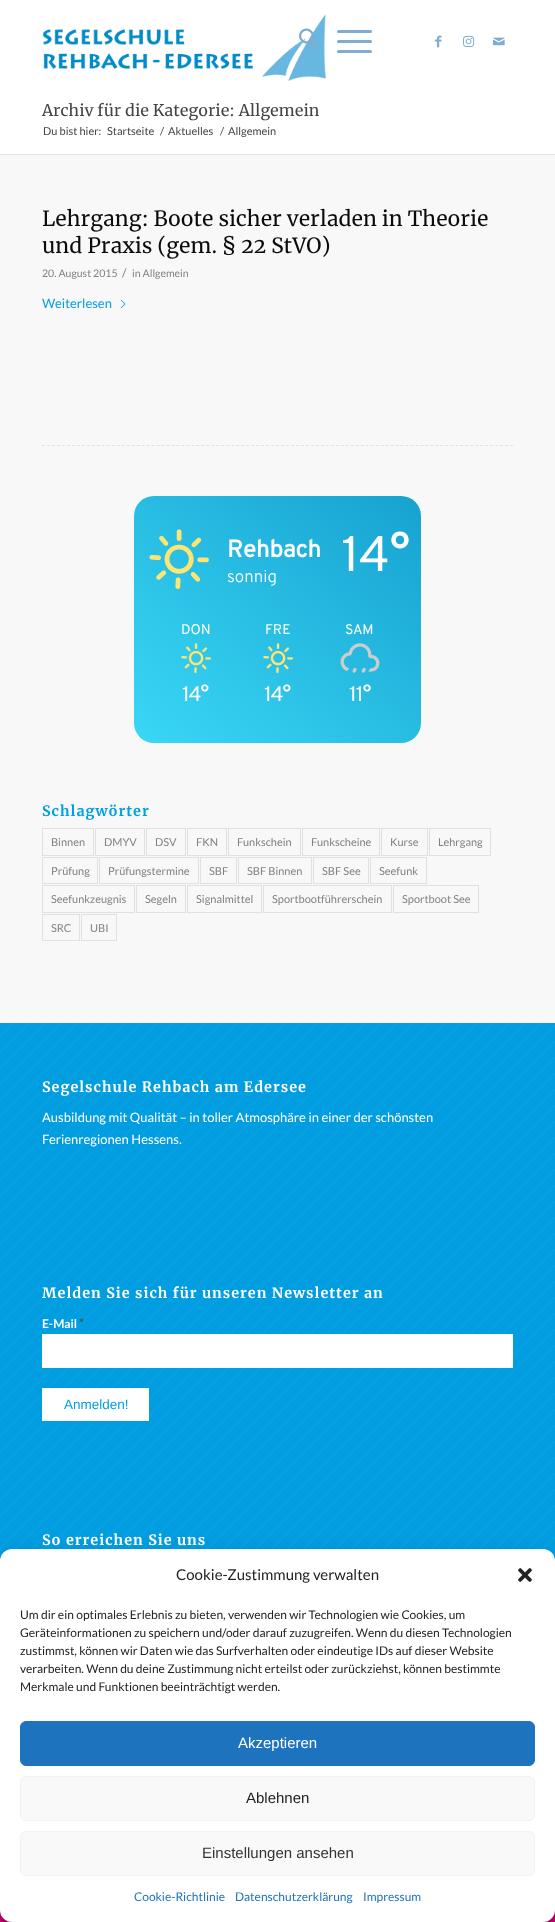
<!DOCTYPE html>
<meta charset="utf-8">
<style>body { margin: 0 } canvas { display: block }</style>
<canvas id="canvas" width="555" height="1922"></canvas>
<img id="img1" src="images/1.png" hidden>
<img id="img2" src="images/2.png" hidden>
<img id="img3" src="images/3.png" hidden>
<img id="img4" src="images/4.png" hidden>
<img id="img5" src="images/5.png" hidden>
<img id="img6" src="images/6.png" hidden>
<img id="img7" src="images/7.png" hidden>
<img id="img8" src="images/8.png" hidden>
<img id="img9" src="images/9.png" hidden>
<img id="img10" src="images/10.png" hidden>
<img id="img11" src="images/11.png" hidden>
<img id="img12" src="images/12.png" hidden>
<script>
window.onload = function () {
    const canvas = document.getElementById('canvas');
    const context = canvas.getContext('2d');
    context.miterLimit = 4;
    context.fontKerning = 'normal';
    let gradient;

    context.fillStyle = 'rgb(226, 0, 121)';
    context.fillRect(0, 0, 555, 1922);
    context.fillStyle = 'rgb(255, 255, 255)';
    context.fillRect(0, 0, 555, 154);
    context.drawImage(document.getElementById('img1'), 42, 14, 284, 67);
    context.drawImage(document.getElementById('img2'), 299, 28, 18, 20);
    context.fillStyle = 'rgb(128, 172, 208)';
    context.beginPath();
    context.roundRect(337, 40, 35, 3, 1.5);
    context.fill();
    context.beginPath();
    context.roundRect(337, 30, 35, 3, 1.5);
    context.fill();
    context.beginPath();
    context.roundRect(337, 50, 35, 3, 1.5);
    context.fill();
    context.drawImage(document.getElementById('img3'), 435, 35, 7, 13);
    context.drawImage(document.getElementById('img4'), 463, 35, 12, 12);
    context.drawImage(document.getElementById('img5'), 493, 37, 12, 9);
    context.fillStyle = 'rgb(248, 248, 248)';
    context.fillRect(0, 155, 555, 867);
    context.fillStyle = 'rgb(225, 225, 225)';
    context.fillRect(0, 154, 555, 1);
    context.drawImage(document.getElementById('img6'), 120, 299, 6, 10);
    context.beginPath();
    context.moveTo(42, 445.5);
    context.lineTo(513, 445.5);
    context.strokeStyle = 'rgb(225, 225, 225)';
    context.setLineDash([3, 1.98]);
    context.stroke();
    gradient = context.createLinearGradient(155, 761, 400, 478);
    gradient.addColorStop(0, 'rgb(58, 215, 246)');
    gradient.addColorStop(1, 'rgb(22, 162, 208)');
    context.fillStyle = gradient;
    context.beginPath();
    context.roundRect(134, 496, 287, 247, 20);
    context.fill();
    context.drawImage(document.getElementById('img7'), 149, 529, 60, 60);
    context.drawImage(document.getElementById('img8'), 181, 643, 30, 30);
    context.drawImage(document.getElementById('img9'), 263, 643, 30, 30);
    context.drawImage(document.getElementById('img10'), 340, 643, 40, 30);
    context.setLineDash([]);
    context.strokeRect(42.5, 828.5, 51, 27);
    context.strokeRect(95.5, 828.5, 49, 27);
    context.strokeRect(146.5, 828.5, 39, 27);
    context.strokeRect(187.5, 828.5, 39, 27);
    context.strokeRect(228.5, 828.5, 72, 27);
    context.strokeRect(302.5, 828.5, 77, 27);
    context.strokeRect(381.5, 828.5, 46, 27);
    context.strokeRect(429.5, 828.5, 61, 27);
    context.strokeRect(42.5, 857.5, 55, 26);
    context.strokeRect(99.5, 857.5, 99, 26);
    context.strokeRect(200.5, 857.5, 36, 26);
    context.strokeRect(238.5, 857.5, 73, 26);
    context.strokeRect(313.5, 857.5, 55, 26);
    context.strokeRect(370.5, 857.5, 56, 26);
    context.strokeRect(42.5, 885.5, 92, 27);
    context.strokeRect(136.5, 885.5, 49, 27);
    context.strokeRect(187.5, 885.5, 74, 27);
    context.strokeRect(263.5, 885.5, 128, 27);
    context.strokeRect(393.5, 885.5, 85, 27);
    context.strokeRect(42.5, 914.5, 37, 26);
    context.strokeRect(81.5, 914.5, 35, 26);
    context.fillStyle = 'rgb(0, 157, 224)';
    context.fillRect(0, 1023, 555, 538);
    context.drawImage(document.getElementById('img11'), 0, 1023, 555, 533);
    context.fillStyle = 'rgb(255, 255, 255)';
    context.fillRect(0, 1022, 555, 1);
    context.fillRect(42, 1334, 471, 34);
    context.fillRect(42, 1388, 107, 33);
    context.fillStyle = 'rgba(0, 0, 0, 0.23)';
    context.filter = 'blur(3px)';
    context.beginPath();
    context.roundRect(0, 1555, 555, 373, 12);
    context.fill();
    context.filter = 'none';
    context.fillStyle = 'rgba(0, 0, 0, 0.19)';
    context.filter = 'blur(10px)';
    context.beginPath();
    context.roundRect(0, 1559, 555, 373, 12);
    context.fill();
    context.filter = 'none';
    context.fillStyle = 'rgb(255, 255, 255)';
    context.beginPath();
    context.roundRect(0, 1549, 555, 373, 12);
    context.fill();
    context.drawImage(document.getElementById('img12'), 518, 1568, 14, 14);
    context.fillStyle = 'rgb(30, 115, 190)';
    context.beginPath();
    context.roundRect(20.5, 1721.5, 514, 44, 5.5);
    context.fill();
    context.strokeStyle = 'rgb(30, 115, 190)';
    context.stroke();
    context.fillStyle = 'rgb(249, 249, 249)';
    context.beginPath();
    context.roundRect(20.5, 1776.5, 514, 44, 5.5);
    context.fill();
    context.strokeStyle = 'rgb(242, 242, 242)';
    context.stroke();
    context.beginPath();
    context.roundRect(20.5, 1831.5, 514, 44, 5.5);
    context.fill();
    context.stroke();
    context.font = '16px Merriweather';
    context.fillStyle = 'rgb(68, 68, 68)';
    context.fillText('Archiv für die Kategorie: Allgemein', 42, 116);
    context.font = '11px Lato';
    context.fillText('Du bist hier:', 43, 135);
    context.fillText('Startseite', 107, 135);
    context.fillText('/', 160, 135);
    context.fillText('Aktuelles', 168, 135);
    context.fillText('/', 220, 135);
    context.fillText('Allgemein', 228, 135);
    context.font = '21px Merriweather';
    context.fillStyle = 'rgb(11, 11, 11)';
    context.fillText('Lehrgang: Boote sicher verladen in Theorie', 42, 226);
    context.fillText('und Praxis (gem. § 22 StVO)', 42, 253);
    context.font = '10.5px Lato';
    context.fillStyle = 'rgb(130, 130, 130)';
    context.fillText('20. August 2015', 42, 277);
    context.font = '12px Lato';
    context.fillText('/', 122, 277);
    context.font = '10.5px Lato';
    context.fillText('in Allgemein', 132, 277);
    context.font = '13px Lato';
    context.fillStyle = 'rgb(0, 159, 227)';
    context.fillText('Weiterlesen', 42, 308);
    context.font = 'bold 24px Overpass';
    context.fillStyle = 'rgb(255, 255, 255)';
    context.fillText('Rehbach', 227, 557);
    context.font = '300 17px Overpass';
    context.fillText('sonnig', 227, 582);
    context.font = '50px Overpass';
    context.fillText('14°', 341, 571);
    context.font = '14px Overpass';
    context.fillText('DON', 181, 634);
    context.letterSpacing = '-1px';
    context.font = '21px Overpass';
    context.fillText('14°', 182, 701);
    context.letterSpacing = '0px';
    context.font = '14px Overpass';
    context.fillText('FRE', 265, 634);
    context.letterSpacing = '-1px';
    context.font = '21px Overpass';
    context.fillText('14°', 264, 701);
    context.letterSpacing = '0px';
    context.font = '14px Overpass';
    context.fillText('SAM', 345, 634);
    context.letterSpacing = '-1px';
    context.font = '21px Overpass';
    context.fillText('11°', 349, 701);
    context.letterSpacing = '1px';
    context.font = 'bold 14.3px Merriweather';
    context.fillStyle = 'rgb(0, 159, 227)';
    context.fillText('Schlagwörter', 42, 816);
    context.letterSpacing = '0px';
    context.font = '11px Lato';
    context.fillStyle = 'rgb(130, 130, 130)';
    context.fillText('Binnen', 51, 846);
    context.fillText('DMYV', 104, 846);
    context.fillText('DSV', 155, 846);
    context.fillText('FKN', 196, 846);
    context.fillText('Funkschein', 237, 846);
    context.fillText('Funkscheine', 311, 846);
    context.fillText('Kurse', 390, 846);
    context.fillText('Lehrgang', 438, 846);
    context.fillText('Prüfung', 51, 875);
    context.fillText('Prüfungstermine', 108, 875);
    context.fillText('SBF', 209, 875);
    context.fillText('SBF Binnen', 247, 875);
    context.fillText('SBF See', 322, 875);
    context.fillText('Seefunk', 379, 875);
    context.fillText('Seefunkzeugnis', 51, 903);
    context.fillText('Segeln', 145, 903);
    context.fillText('Signalmittel', 196, 903);
    context.fillText('Sportbootführerschein', 272, 903);
    context.fillText('Sportboot See', 402, 903);
    context.fillText('SRC', 51, 932);
    context.fillText('UBI', 90, 932);
    context.letterSpacing = '1px';
    context.font = 'bold 14.3px Merriweather';
    context.fillStyle = 'rgb(255, 255, 255)';
    context.fillText('Segelschule Rehbach am Edersee', 42, 1092);
    context.letterSpacing = '0px';
    context.font = '13px Lato';
    context.fillText('Ausbildung mit Qualität – in toller Atmosphäre in einer der schönsten', 42, 1122);
    context.fillText('Ferienregionen Hessens.', 42, 1144);
    context.letterSpacing = '1px';
    context.font = 'bold 14.3px Merriweather';
    context.fillText('Melden Sie sich für unseren Newsletter an', 42, 1298);
    context.letterSpacing = '0px';
    context.font = 'bold 12px Lato';
    context.fillText('E-Mail', 42, 1328);
    context.font = '13px Lato';
    context.fillStyle = 'rgb(68, 68, 68)';
    context.fillText('*', 79, 1328);
    context.font = '13.5px Liberation Sans';
    context.fillStyle = 'rgb(0, 159, 227)';
    context.fillText('Anmelden!', 64, 1409);
    context.letterSpacing = '1px';
    context.font = 'bold 14.3px Merriweather';
    context.fillStyle = 'rgb(255, 255, 255)';
    context.fillText('So erreichen Sie uns', 42, 1545);
    context.letterSpacing = '0px';
    context.font = '15px Lato';
    context.fillStyle = 'rgb(34, 34, 34)';
    context.fillText('Cookie-Zustimmung verwalten', 176, 1580);
    context.font = '12px Lato';
    context.fillText('Um dir ein optimales Erlebnis zu bieten, verwenden wir Technologien wie Cookies, um', 20, 1619);
    context.fillText('Geräteinformationen zu speichern und/oder darauf zuzugreifen. Wenn du diesen Technologien', 20, 1637);
    context.fillText('zustimmst, können wir Daten wie das Surfverhalten oder eindeutige IDs auf dieser Website', 20, 1655);
    context.fillText('verarbeiten. Wenn du deine Zustimmung nicht erteilst oder zurückziehst, können bestimmte', 20, 1673);
    context.fillText('Merkmale und Funktionen beeinträchtigt werden.', 20, 1691);
    context.font = '15px Liberation Sans';
    context.fillStyle = 'rgb(255, 255, 255)';
    context.fillText('Akzeptieren', 238, 1748);
    context.fillStyle = 'rgb(34, 34, 34)';
    context.fillText('Ablehnen', 246, 1803);
    context.fillStyle = 'rgb(51, 51, 51)';
    context.fillText('Einstellungen ansehen', 202, 1858);
    context.font = '12px Lato';
    context.fillStyle = 'rgb(30, 115, 190)';
    context.fillText('Cookie-Richtlinie', 134, 1901);
    context.fillText('Datenschutzerklärung', 235, 1901);
    context.fillText('Impressum', 363, 1901);
};
</script>
